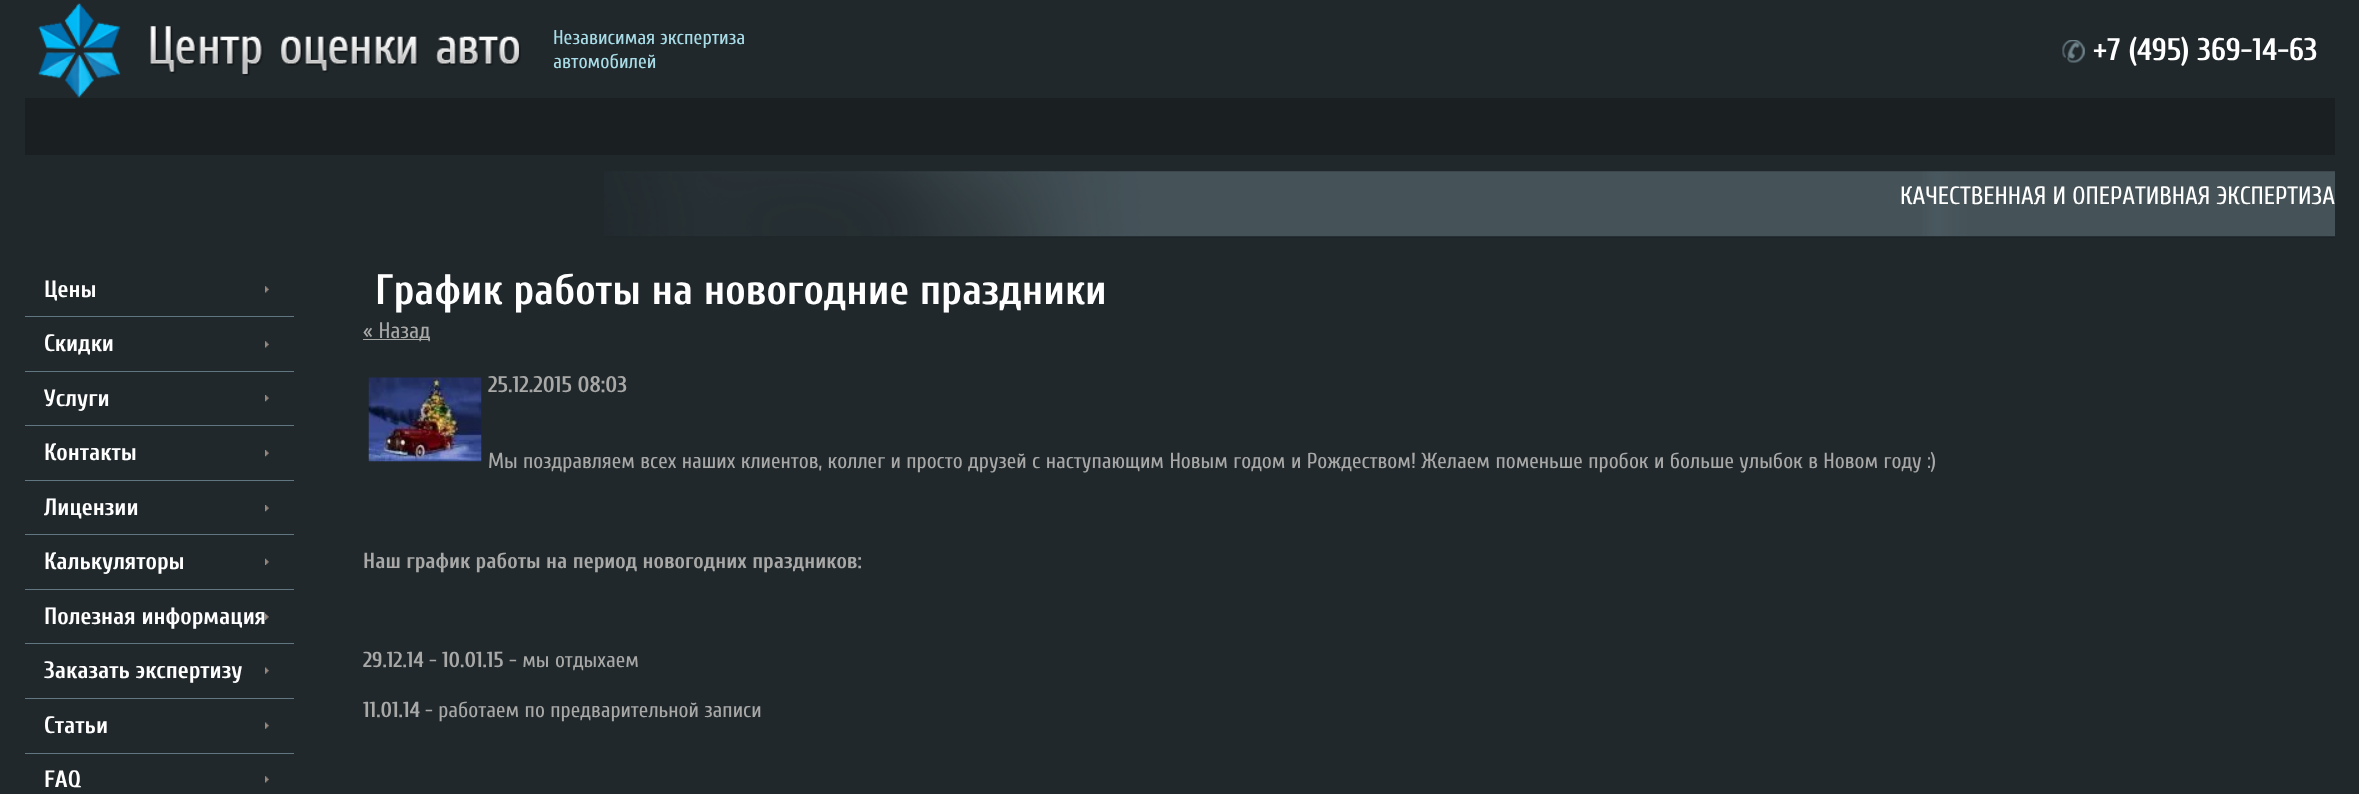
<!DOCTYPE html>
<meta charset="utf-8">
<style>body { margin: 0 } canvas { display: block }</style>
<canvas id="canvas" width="2359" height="794"></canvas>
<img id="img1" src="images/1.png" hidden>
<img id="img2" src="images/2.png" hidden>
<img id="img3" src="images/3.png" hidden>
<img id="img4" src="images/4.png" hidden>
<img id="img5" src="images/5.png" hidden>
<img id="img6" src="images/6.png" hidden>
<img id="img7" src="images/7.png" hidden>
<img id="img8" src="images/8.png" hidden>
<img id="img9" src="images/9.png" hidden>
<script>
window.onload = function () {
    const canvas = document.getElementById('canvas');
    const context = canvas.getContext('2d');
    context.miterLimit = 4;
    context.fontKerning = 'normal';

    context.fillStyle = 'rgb(32, 40, 44)';
    context.fillRect(0, 0, 2359, 794);
    context.drawImage(document.getElementById('img1'), 38, 3, 83, 95);
    context.drawImage(document.getElementById('img2'), 150, 26, 371, 50);
    context.drawImage(document.getElementById('img3'), 2062, 40, 23, 23);
    context.fillStyle = 'rgb(26, 32, 33)';
    context.fillRect(25, 98, 2310, 57);
    context.drawImage(document.getElementById('img4'), 604, 171, 1731, 67);
    context.drawImage(document.getElementById('img5'), 265, 286, 4, 7);
    context.fillStyle = 'rgb(96, 118, 129)';
    context.fillRect(25, 316, 269, 1);
    context.drawImage(document.getElementById('img5'), 265, 341, 4, 7);
    context.fillRect(25, 371, 269, 1);
    context.drawImage(document.getElementById('img6'), 265, 395, 4, 7);
    context.fillRect(25, 425, 269, 1);
    context.drawImage(document.getElementById('img6'), 265, 450, 4, 7);
    context.fillRect(25, 480, 269, 1);
    context.drawImage(document.getElementById('img6'), 265, 505, 4, 7);
    context.fillRect(25, 534, 269, 1);
    context.drawImage(document.getElementById('img7'), 265, 558, 4, 7);
    context.fillRect(25, 589, 269, 1);
    context.drawImage(document.getElementById('img7'), 265, 613, 4, 7);
    context.fillRect(25, 643, 269, 1);
    context.drawImage(document.getElementById('img8'), 265, 667, 4, 7);
    context.fillRect(25, 698, 269, 1);
    context.drawImage(document.getElementById('img8'), 265, 722, 4, 7);
    context.fillRect(25, 753, 269, 1);
    context.drawImage(document.getElementById('img5'), 265, 776, 4, 7);
    context.fillStyle = 'rgb(168, 168, 167)';
    context.fillRect(363, 339, 67, 1);
    context.drawImage(document.getElementById('img9'), 368, 377, 114, 85);
    context.font = '20px Cuprum';
    context.fillStyle = 'rgb(168, 220, 231)';
    context.fillText('Независимая экспертиза', 553, 44);
    context.fillText('автомобилей', 553, 68);
    context.font = 'bold 31.25px Cuprum';
    context.fillStyle = 'rgb(255, 255, 255)';
    context.fillText('+7 (495) 369-14-63', 2093, 60);
    context.font = '25px Cuprum';
    context.fillText('КАЧЕСТВЕННАЯ И ОПЕРАТИВНАЯ ЭКСПЕРТИЗА', 1900, 204);
    context.font = 'bold 23.75px Cuprum';
    context.fillText('Цены', 44, 297);
    context.fillText('Скидки', 44, 351);
    context.fillText('Услуги', 44, 406);
    context.fillText('Контакты', 44, 460);
    context.fillText('Лицензии', 44, 515);
    context.fillText('Калькуляторы', 44, 569);
    context.fillText('Полезная информация', 44, 624);
    context.fillText('Заказать экспертизу', 44, 678);
    context.fillText('Статьи', 44, 733);
    context.fillText('FAQ', 44, 787);
    context.font = 'bold 42.5px Cuprum';
    context.fillText('График работы на новогодние праздники', 375, 304);
    context.font = '22.5px Cuprum';
    context.fillStyle = 'rgb(168, 168, 167)';
    context.fillText('« Назад', 363, 338);
    context.font = 'bold 22.5px Cuprum';
    context.fillText('25.12.2015 08:03', 488, 392);
    context.font = '21.67px Cuprum';
    context.fillText('Мы поздравляем всех наших клиентов, коллег и просто друзей с наступающим Новым годом и Рождеством! Желаем поменьше пробок и больше улыбок в Новом году :)', 488, 468);
    context.font = 'bold 21.67px Cuprum';
    context.fillText('Наш график работы на период новогодних праздников:', 363, 568);
    context.fillText('29.12.14', 363, 667);
    context.font = '21.67px Cuprum';
    context.fillText('-', 429, 667);
    context.font = 'bold 21.67px Cuprum';
    context.fillText('10.01.15', 442, 667);
    context.font = '21.67px Cuprum';
    context.fillText('- мы отдыхаем', 509, 667);
    context.font = 'bold 21.67px Cuprum';
    context.fillText('11.01.14', 363, 717);
    context.font = '21.67px Cuprum';
    context.fillText('- работаем по предварительной записи', 425, 717);
};
</script>
